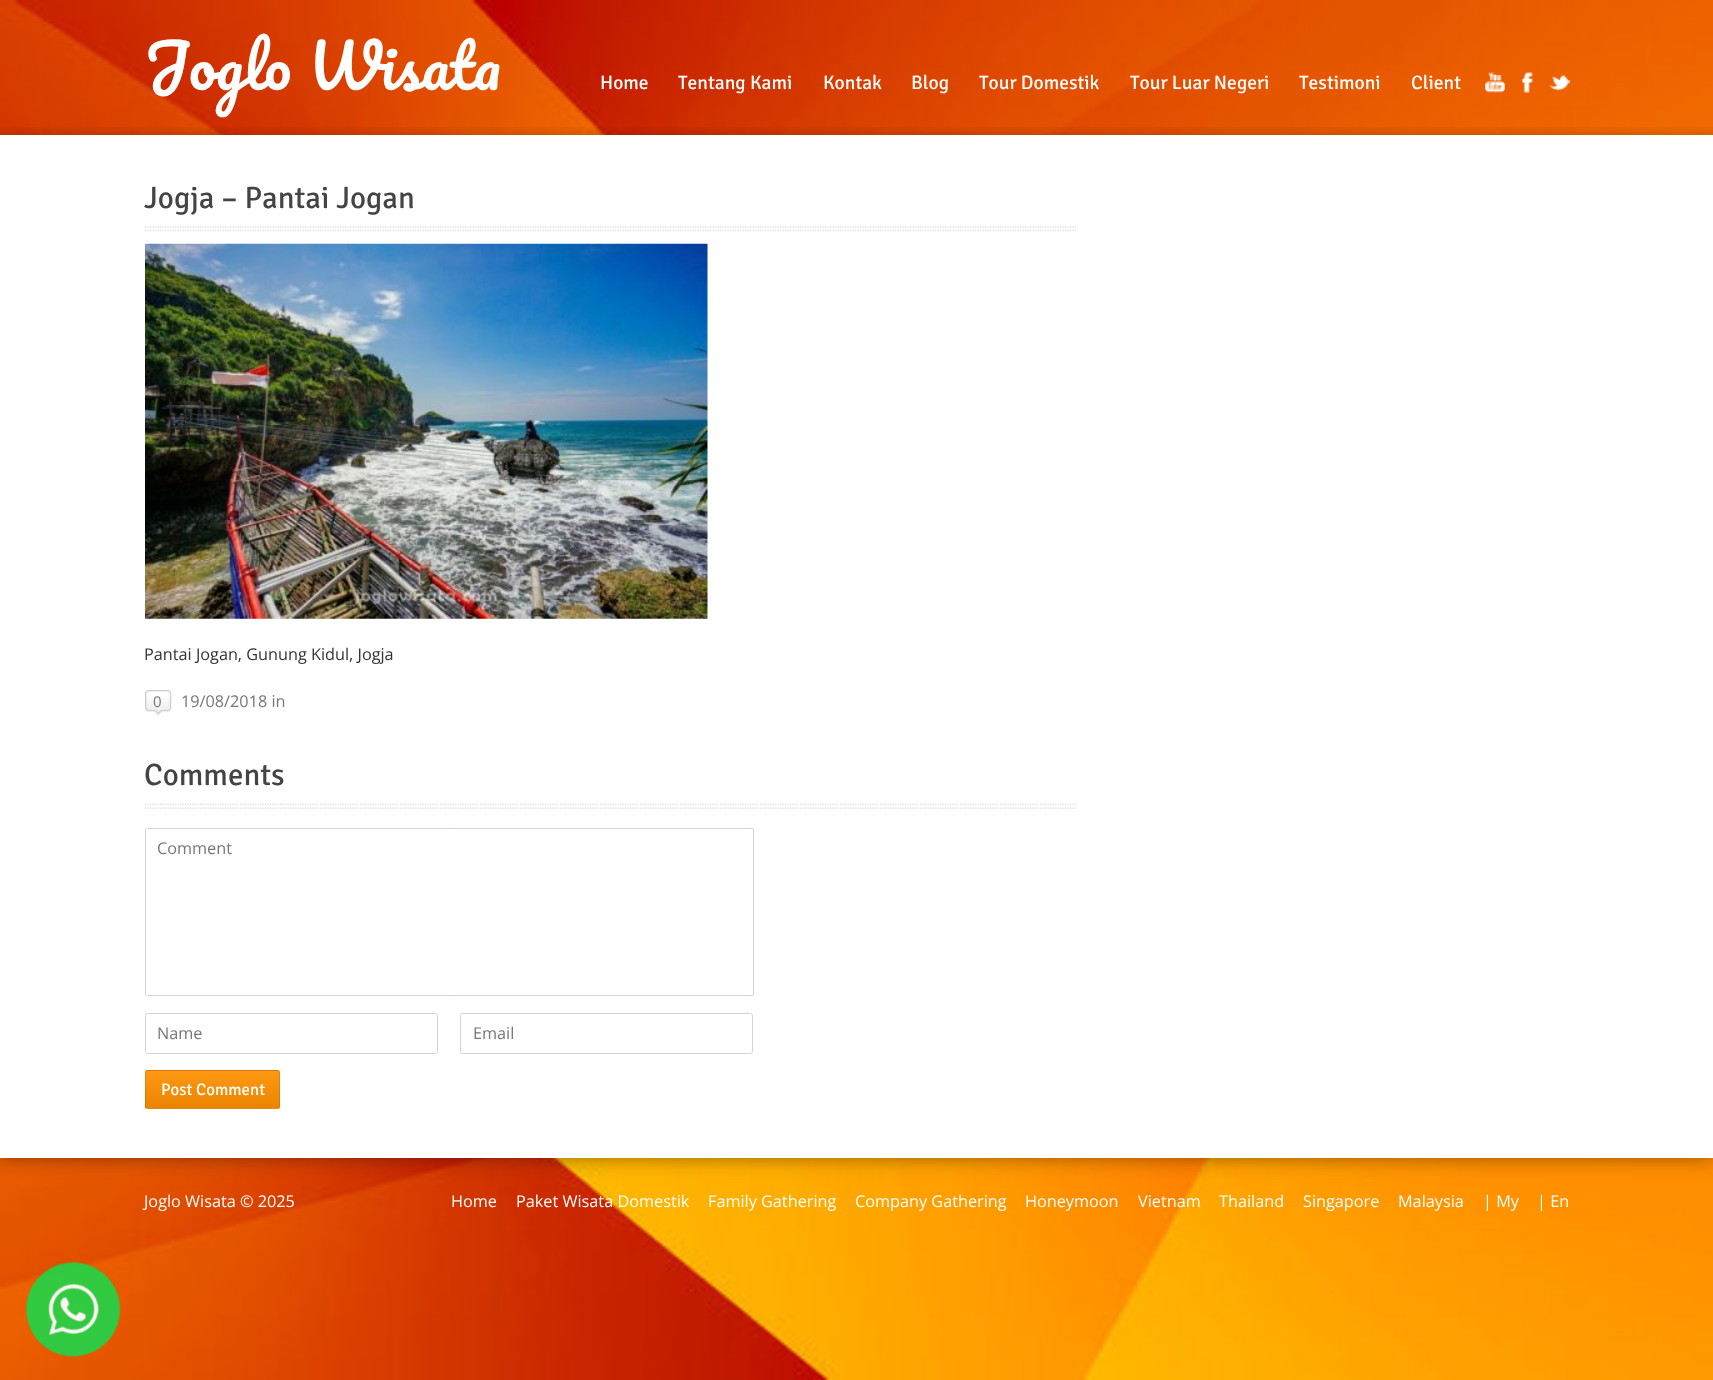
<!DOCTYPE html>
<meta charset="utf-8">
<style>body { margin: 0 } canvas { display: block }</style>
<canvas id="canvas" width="1713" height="1380"></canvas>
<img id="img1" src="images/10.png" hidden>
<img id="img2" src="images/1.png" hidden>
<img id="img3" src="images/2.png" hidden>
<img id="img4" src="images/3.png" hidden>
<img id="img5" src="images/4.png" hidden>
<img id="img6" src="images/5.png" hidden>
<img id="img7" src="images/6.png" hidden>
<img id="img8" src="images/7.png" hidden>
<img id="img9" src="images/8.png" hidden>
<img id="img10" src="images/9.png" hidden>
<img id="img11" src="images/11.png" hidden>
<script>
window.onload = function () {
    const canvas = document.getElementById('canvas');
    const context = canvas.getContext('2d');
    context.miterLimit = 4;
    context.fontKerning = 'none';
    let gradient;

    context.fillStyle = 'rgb(255, 255, 255)';
    context.fillRect(0, 0, 1713, 1380);
    context.drawImage(document.getElementById('img1'), 0, 1158, 1713, 222);
    context.fillStyle = 'rgba(0, 0, 0, 0.4)';
    context.filter = 'blur(9.5px)';
    context.beginPath();
    context.rect(0, 135, 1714, 1023);
    context.fill();
    context.filter = 'none';
    context.drawImage(document.getElementById('img2'), 0, 0, 1713, 135);
    context.fillStyle = 'rgb(206, 45, 1)';
    context.fillRect(695, 88, 1, 1);
    context.drawImage(document.getElementById('img3'), 1485, 72, 20, 21);
    context.drawImage(document.getElementById('img4'), 1522, 72, 11, 21);
    context.drawImage(document.getElementById('img5'), 1550, 74, 20, 17);
    context.drawImage(document.getElementById('img6'), 0, 127, 1713, 8);
    context.fillStyle = 'rgb(255, 255, 255)';
    context.fillRect(0, 135, 1713, 1023);
    context.drawImage(document.getElementById('img7'), 145, 226, 931, 6);
    context.drawImage(document.getElementById('img8'), 145, 243, 563, 376);
    context.drawImage(document.getElementById('img9'), 145, 690, 27, 25);
    context.drawImage(document.getElementById('img10'), 145, 803, 931, 6);
    context.beginPath();
    context.roundRect(145.5, 828.5, 608, 167, 2);
    context.strokeStyle = 'rgb(212, 212, 212)';
    context.stroke();
    context.beginPath();
    context.roundRect(145.5, 1013.5, 292, 40, 2);
    context.stroke();
    context.beginPath();
    context.roundRect(460.5, 1013.5, 292, 40, 2);
    context.stroke();
    context.fillStyle = 'rgb(255, 144, 0)';
    context.beginPath();
    context.roundRect(145, 1070, 135, 39, 2.5);
    context.fill();
    gradient = context.createLinearGradient(146, 1071, 146, 1035);
    gradient.addColorStop(0, 'rgba(0, 0, 0, 0.08)');
    gradient.addColorStop(0.5, 'rgba(128, 128, 128, 0.08)');
    gradient.addColorStop(1, 'rgba(255, 255, 255, 0.08)');
    context.fillStyle = gradient;
    context.fillRect(145, 1070, 135, 1);
    gradient = context.createLinearGradient(146, 1108, 146, 1071);
    gradient.addColorStop(0, 'rgba(0, 0, 0, 0.08)');
    gradient.addColorStop(0.5, 'rgba(128, 128, 128, 0.08)');
    gradient.addColorStop(1, 'rgba(255, 255, 255, 0.08)');
    context.fillStyle = gradient;
    context.fillRect(145, 1071, 135, 37);
    gradient = context.createLinearGradient(146, 1144, 146, 1108);
    gradient.addColorStop(0, 'rgba(0, 0, 0, 0.08)');
    gradient.addColorStop(0.5, 'rgba(128, 128, 128, 0.08)');
    gradient.addColorStop(1, 'rgba(255, 255, 255, 0.08)');
    context.fillStyle = gradient;
    context.fillRect(145, 1108, 135, 1);
    context.beginPath();
    context.roundRect(145.5, 1070.5, 134, 38, 2);
    context.strokeStyle = 'rgba(0, 0, 0, 0.1)';
    context.stroke();
    context.drawImage(document.getElementById('img11'), 26, 1262, 95, 95);
    context.wordSpacing = '1px';
    context.font = '60px Pacifico';
    context.fillStyle = 'rgb(255, 255, 255)';
    context.fillText('Joglo Wisata', 144, 90);
    context.wordSpacing = '0px';
    context.font = '19.5px Signika';
    context.fillText('Home', 600, 89);
    context.fillText('Tentang Kami', 678, 89);
    context.fillText('Kontak', 823, 89);
    context.fillText('Blog', 911, 89);
    context.fillText('Tour Domestik', 979, 89);
    context.fillText('Tour Luar Negeri', 1130, 89);
    context.fillText('Testimoni', 1299, 89);
    context.fillText('Client', 1411, 89);
    context.font = '30.9px Signika';
    context.fillStyle = 'rgb(68, 68, 68)';
    context.fillText('Jogja – Pantai Jogan', 144, 208);
    context.font = '16.25px Open Sans';
    context.fillStyle = 'rgb(51, 51, 51)';
    context.fillText('Pantai Jogan, Gunung Kidul, Jogja', 144, 660);
    context.font = '15px Open Sans';
    context.fillStyle = 'rgb(119, 119, 119)';
    context.fillText('0', 153, 707);
    context.font = '16.25px Open Sans';
    context.fillText('19/08/2018 in', 181, 707);
    context.font = '30.9px Signika';
    context.fillStyle = 'rgb(68, 68, 68)';
    context.fillText('Comments', 144, 785);
    context.font = '16.25px Open Sans';
    context.fillStyle = 'rgb(119, 119, 119)';
    context.fillText('Comment', 157, 854);
    context.fillText('Name', 157, 1039);
    context.fillText('Email', 473, 1039);
    context.font = '16.75px Signika';
    context.fillStyle = 'rgb(255, 255, 255)';
    context.fillText('Post Comment', 161, 1095);
    context.font = '16.25px Open Sans';
    context.fillText('Joglo Wisata © 2025', 144, 1207);
    context.fillText('Home', 451, 1207);
    context.fillText('Paket Wisata Domestik', 516, 1207);
    context.fillText('Family Gathering', 708, 1207);
    context.fillText('Company Gathering', 855, 1207);
    context.fillText('Honeymoon', 1025, 1207);
    context.fillText('Vietnam', 1138, 1207);
    context.fillText('Thailand', 1219, 1207);
    context.fillText('Singapore', 1303, 1207);
    context.fillText('Malaysia', 1398, 1207);
    context.fillText('| My', 1483, 1207);
    context.fillText('| En', 1537, 1207);
};
</script>
